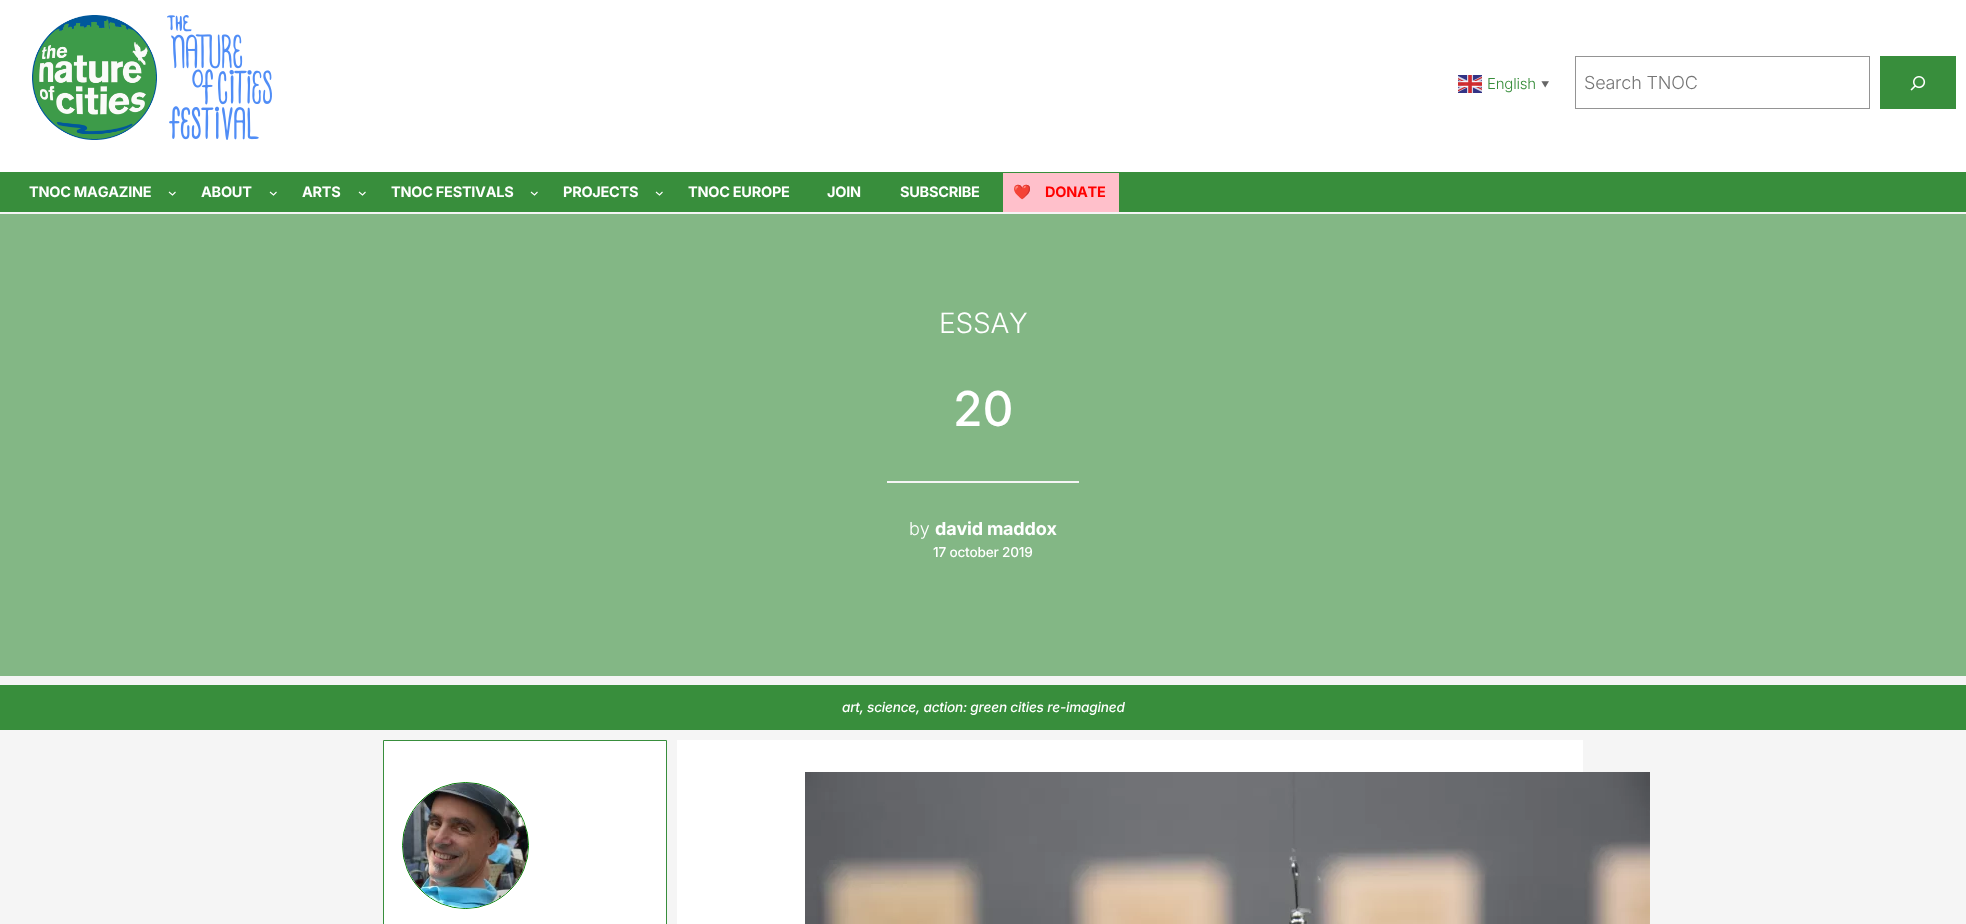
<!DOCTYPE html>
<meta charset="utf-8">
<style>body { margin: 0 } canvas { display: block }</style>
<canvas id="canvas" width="1966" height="924"></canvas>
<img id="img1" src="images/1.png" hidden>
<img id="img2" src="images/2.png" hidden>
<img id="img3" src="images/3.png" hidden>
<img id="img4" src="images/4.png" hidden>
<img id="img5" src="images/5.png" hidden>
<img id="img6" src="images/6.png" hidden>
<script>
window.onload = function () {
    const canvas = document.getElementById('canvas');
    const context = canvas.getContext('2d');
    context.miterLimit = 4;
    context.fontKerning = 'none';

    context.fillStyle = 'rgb(245, 245, 245)';
    context.fillRect(0, 0, 1966, 924);
    context.fillStyle = 'rgb(255, 255, 255)';
    context.fillRect(0, 0, 1966, 172);
    context.drawImage(document.getElementById('img1'), 32, 15, 125, 125);
    context.drawImage(document.getElementById('img2'), 167, 15, 105, 125);
    context.drawImage(document.getElementById('img3'), 1458, 75, 24, 18);
    context.strokeStyle = 'rgb(148, 148, 148)';
    context.strokeRect(1575.5, 56.5, 294, 52);
    context.fillStyle = 'rgb(56, 142, 60)';
    context.fillRect(1880, 56, 76, 53);
    context.drawImage(document.getElementById('img4'), 1910, 76, 16, 15);
    context.fillRect(0, 172, 1966, 40);
    context.beginPath();
    context.moveTo(169, 192);
    context.lineTo(172.5, 195);
    context.lineTo(175.5, 192);
    context.strokeStyle = 'rgb(255, 255, 255)';
    context.lineWidth = 1.1;
    context.stroke();
    context.beginPath();
    context.moveTo(270, 192);
    context.lineTo(273.5, 195);
    context.lineTo(276.5, 192);
    context.stroke();
    context.beginPath();
    context.moveTo(359, 192);
    context.lineTo(362.5, 195);
    context.lineTo(365.5, 192);
    context.stroke();
    context.beginPath();
    context.moveTo(531, 192);
    context.lineTo(534.5, 195);
    context.lineTo(537.5, 192);
    context.stroke();
    context.beginPath();
    context.moveTo(656, 192);
    context.lineTo(659.5, 195);
    context.lineTo(662.5, 192);
    context.stroke();
    context.fillStyle = 'rgb(255, 192, 203)';
    context.fillRect(1003, 173, 116, 39);
    context.fillStyle = 'rgb(131, 183, 133)';
    context.fillRect(0, 214, 1966, 462);
    context.fillStyle = 'rgb(245, 245, 245)';
    context.fillRect(887, 481, 192, 2);
    context.fillStyle = 'rgb(56, 142, 60)';
    context.fillRect(0, 685, 1966, 45);
    context.fillStyle = 'rgb(255, 255, 255)';
    context.beginPath();
    context.rect(383.5, 740.5, 283, 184);
    context.fill();
    context.strokeStyle = 'rgb(56, 142, 60)';
    context.lineWidth = 1;
    context.stroke();
    context.beginPath();
    context.arc(465.5, 845.5, 63, 0, 2 * Math.PI);
    context.strokeStyle = 'rgb(0, 128, 0)';
    context.stroke();
    context.drawImage(document.getElementById('img5'), 403, 783, 125, 125);
    context.fillRect(677, 740, 906, 184);
    context.drawImage(document.getElementById('img6'), 805, 772, 845, 152);
    context.letterSpacing = '-0.2px';
    context.font = '300 15px Inter';
    context.fillStyle = 'rgb(56, 142, 60)';
    context.fillText('English', 1487, 89);
    context.font = 'bold 8px Inter';
    context.fillStyle = 'rgb(102, 102, 102)';
    context.fillText('▼', 1541, 87);
    context.font = '300 18px Inter';
    context.fillStyle = 'rgb(117, 117, 117)';
    context.fillText('Search TNOC', 1584, 89);
    context.letterSpacing = '-0.25px';
    context.font = 'bold 14.5px Inter';
    context.fillStyle = 'rgb(255, 255, 255)';
    context.fillText('TNOC MAGAZINE', 29, 197);
    context.fillText('ABOUT', 201, 197);
    context.fillText('ARTS', 302, 197);
    context.fillText('TNOC FESTIVALS', 391, 197);
    context.fillText('PROJECTS', 563, 197);
    context.fillText('TNOC EUROPE', 688, 197);
    context.fillText('JOIN', 827, 197);
    context.fillText('SUBSCRIBE', 900, 197);
    context.font = 'bold 14.5px Noto Color Emoji';
    context.fillStyle = 'rgb(255, 0, 0)';
    context.fillText('❤️', 1013, 197);
    context.font = 'bold 14.5px Inter';
    context.fillText('DONATE', 1045, 197);
    context.letterSpacing = '-0.2px';
    context.font = '300 28px Inter';
    context.fillStyle = 'rgb(255, 255, 255)';
    context.fillText('ESSAY', 939, 333);
    context.font = '500 48px Inter';
    context.fillText('20', 953, 426);
    context.font = '300 18px Inter';
    context.fillText('by', 909, 535);
    context.font = 'bold 18px Inter';
    context.fillText('david maddox', 935, 535);
    context.font = '500 13.6px Inter';
    context.fillText('17 october 2019', 933, 557);
    context.font = 'italic 500 13.6px Inter';
    context.fillText('art, science, action: green cities re-imagined', 842, 712);
};
</script>
